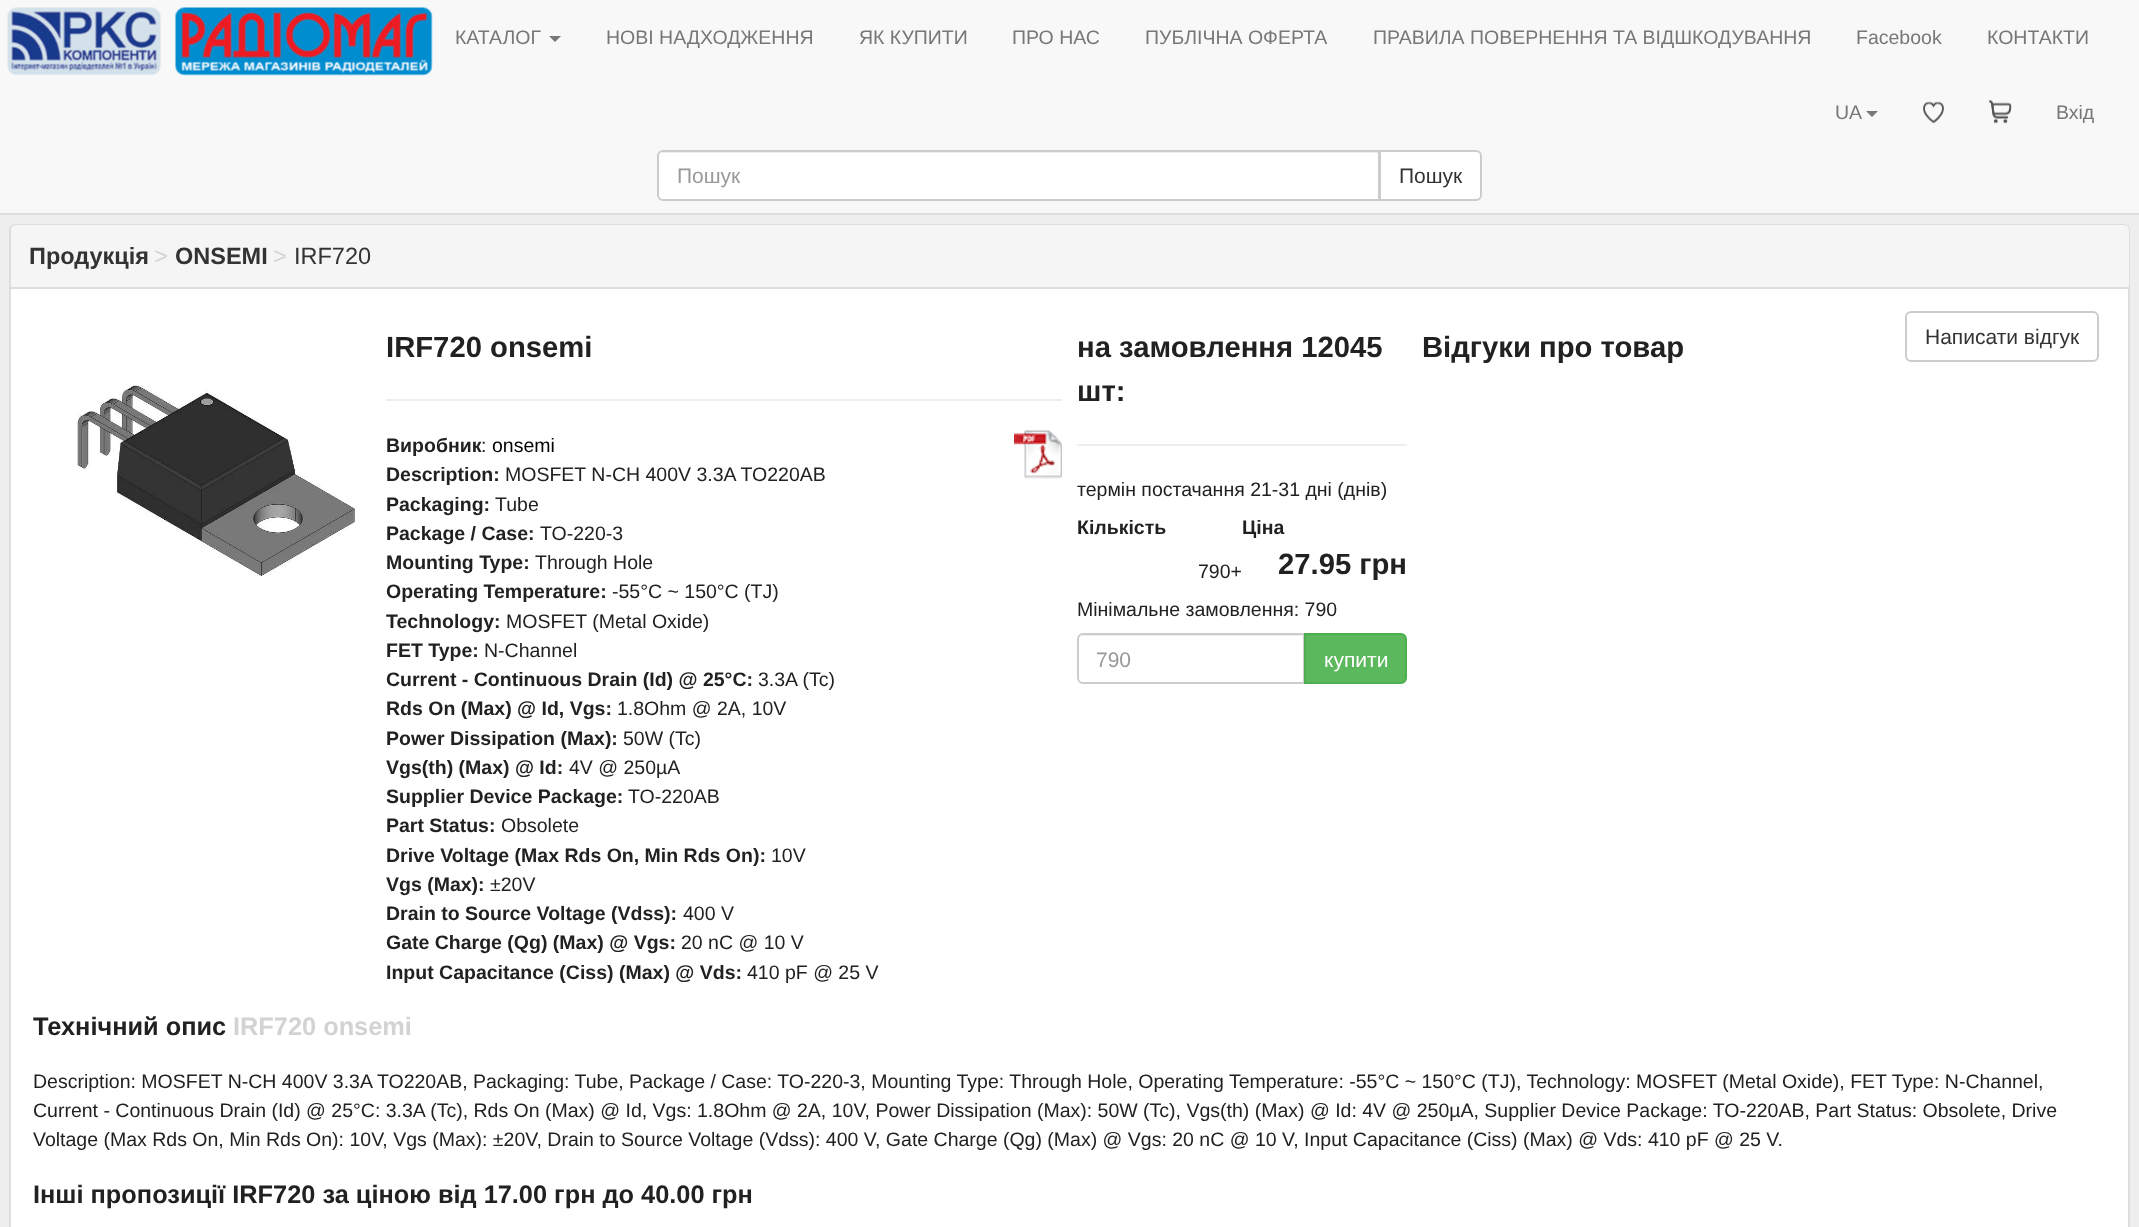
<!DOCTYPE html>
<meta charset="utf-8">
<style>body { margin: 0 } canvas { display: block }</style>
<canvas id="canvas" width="2139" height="1227"></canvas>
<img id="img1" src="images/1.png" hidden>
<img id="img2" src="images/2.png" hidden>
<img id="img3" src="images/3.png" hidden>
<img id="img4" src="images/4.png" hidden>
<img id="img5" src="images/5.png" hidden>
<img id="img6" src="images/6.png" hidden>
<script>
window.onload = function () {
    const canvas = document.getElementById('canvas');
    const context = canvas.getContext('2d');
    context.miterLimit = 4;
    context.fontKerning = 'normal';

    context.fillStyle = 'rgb(238, 238, 238)';
    context.fillRect(0, 0, 2139, 1227);
    context.fillStyle = 'rgb(248, 248, 248)';
    context.fillRect(0, 0, 2139, 213);
    context.fillStyle = 'rgb(221, 221, 221)';
    context.fillRect(0, 213, 2139, 2);
    context.drawImage(document.getElementById('img1'), 7, 7, 154, 69);
    context.drawImage(document.getElementById('img2'), 175, 7, 258, 69);
    context.fillStyle = 'rgb(119, 119, 119)';
    context.beginPath();
    context.moveTo(549, 36);
    context.lineTo(561, 36);
    context.lineTo(555, 42);
    context.closePath();
    context.fill();
    context.beginPath();
    context.moveTo(1866, 111);
    context.lineTo(1878, 111);
    context.lineTo(1872, 117);
    context.closePath();
    context.fill();
    context.drawImage(document.getElementById('img3'), 1923, 101, 21, 23);
    context.drawImage(document.getElementById('img4'), 1989, 100, 23, 24);
    context.fillStyle = 'rgb(255, 255, 255)';
    context.beginPath();
    context.roundRect(657, 150, 723, 51, [6, 0, 0, 6]);
    context.fill();
    context.fillStyle = 'rgb(236, 236, 236)';
    context.beginPath();
    context.moveTo(663, 153);
    context.lineTo(1378, 153);
    context.lineTo(1378, 200);
    context.lineTo(1379, 200);
    context.lineTo(1379, 152);
    context.lineTo(664, 152);
    context.bezierCurveTo(662, 152, 661, 153, 660, 154);
    context.closePath();
    context.fill();
    context.beginPath();
    context.roundRect(658, 151, 721, 49, [5, 0, 0, 5]);
    context.strokeStyle = 'rgb(204, 204, 204)';
    context.lineWidth = 2;
    context.stroke();
    context.fillStyle = 'rgb(255, 255, 255)';
    context.beginPath();
    context.roundRect(1380, 151, 101, 49, [0, 5, 5, 0]);
    context.fill();
    context.stroke();
    context.beginPath();
    context.roundRect(10, 225, 2119, 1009, 5);
    context.fill();
    context.strokeStyle = 'rgb(221, 221, 221)';
    context.stroke();
    context.fillStyle = 'rgb(245, 245, 245)';
    context.beginPath();
    context.roundRect(11, 225, 2118, 63, [5, 5, 0, 0]);
    context.fill();
    context.fillStyle = 'rgb(221, 221, 221)';
    context.fillRect(11, 287, 2118, 2);
    context.drawImage(document.getElementById('img5'), 77, 385, 279, 192);
    context.fillStyle = 'rgb(238, 238, 238)';
    context.fillRect(386, 399, 676, 2);
    context.drawImage(document.getElementById('img6'), 1014, 430, 48, 49);
    context.fillRect(1077, 444, 330, 2);
    context.fillStyle = 'rgb(236, 236, 236)';
    context.beginPath();
    context.moveTo(1083, 636);
    context.lineTo(1304, 636);
    context.lineTo(1304, 635);
    context.lineTo(1084, 635);
    context.bezierCurveTo(1082, 635, 1081, 636, 1080, 637);
    context.closePath();
    context.fill();
    context.beginPath();
    context.roundRect(1078, 634, 226, 49, [5, 0, 0, 5]);
    context.strokeStyle = 'rgb(204, 204, 204)';
    context.stroke();
    context.fillStyle = 'rgb(92, 184, 92)';
    context.beginPath();
    context.roundRect(1305, 634, 101, 49, [0, 5, 5, 0]);
    context.fill();
    context.strokeStyle = 'rgb(76, 174, 76)';
    context.stroke();
    context.beginPath();
    context.roundRect(1906, 312, 192, 49, 5);
    context.strokeStyle = 'rgb(204, 204, 204)';
    context.stroke();
    context.font = '19.5px Liberation Sans';
    context.fillStyle = 'rgb(119, 119, 119)';
    context.fillText('КАТАЛОГ', 455, 44);
    context.fillText('НОВІ НАДХОДЖЕННЯ', 606, 44);
    context.fillText('ЯК КУПИТИ', 859, 44);
    context.fillText('ПРО НАС', 1012, 44);
    context.fillText('ПУБЛІЧНА ОФЕРТА', 1145, 44);
    context.fillText('ПРАВИЛА ПОВЕРНЕННЯ ТА ВІДШКОДУВАННЯ', 1373, 44);
    context.fillText('Facebook', 1856, 44);
    context.fillText('КОНТАКТИ', 1987, 44);
    context.fillText('UA', 1835, 119);
    context.fillText('Вхід', 2056, 119);
    context.font = '21px Liberation Sans';
    context.fillStyle = 'rgb(153, 153, 153)';
    context.fillText('Пошук', 677, 183);
    context.fillStyle = 'rgb(51, 51, 51)';
    context.fillText('Пошук', 1399, 183);
    context.font = 'bold 23.5px Liberation Sans';
    context.fillText('Продукція', 29, 264);
    context.font = '23.5px Liberation Sans';
    context.fillStyle = 'rgb(211, 211, 211)';
    context.fillText('>', 154, 264);
    context.font = 'bold 23.5px Liberation Sans';
    context.fillStyle = 'rgb(51, 51, 51)';
    context.fillText('ONSEMI', 175, 264);
    context.font = '23.5px Liberation Sans';
    context.fillStyle = 'rgb(211, 211, 211)';
    context.fillText('>', 273, 264);
    context.fillStyle = 'rgb(51, 51, 51)';
    context.fillText('IRF720', 294, 264);
    context.font = 'bold 29.25px Liberation Sans';
    context.fillStyle = 'rgb(33, 33, 33)';
    context.fillText('IRF720 onsemi', 386, 357);
    context.font = 'bold 19.5px Liberation Sans';
    context.fillText('Виробник', 386, 452);
    context.font = '19.5px Liberation Sans';
    context.fillText(':', 481, 452);
    context.fillStyle = 'rgb(0, 0, 0)';
    context.fillText('onsemi', 492, 452);
    context.font = 'bold 19.5px Liberation Sans';
    context.fillStyle = 'rgb(33, 33, 33)';
    context.fillText('Description:', 386, 481);
    context.font = '19.5px Liberation Sans';
    context.fillText('MOSFET N-CH 400V 3.3A TO220AB', 505, 481);
    context.font = 'bold 19.5px Liberation Sans';
    context.fillText('Packaging:', 386, 511);
    context.font = '19.5px Liberation Sans';
    context.fillText('Tube', 495, 511);
    context.font = 'bold 19.5px Liberation Sans';
    context.fillText('Package / Case:', 386, 540);
    context.font = '19.5px Liberation Sans';
    context.fillText('TO-220-3', 540, 540);
    context.font = 'bold 19.5px Liberation Sans';
    context.fillText('Mounting Type:', 386, 569);
    context.font = '19.5px Liberation Sans';
    context.fillText('Through Hole', 535, 569);
    context.font = 'bold 19.5px Liberation Sans';
    context.fillText('Operating Temperature:', 386, 598);
    context.font = '19.5px Liberation Sans';
    context.fillText('-55°C ~ 150°C (TJ)', 612, 598);
    context.font = 'bold 19.5px Liberation Sans';
    context.fillText('Technology:', 386, 628);
    context.font = '19.5px Liberation Sans';
    context.fillText('MOSFET (Metal Oxide)', 506, 628);
    context.font = 'bold 19.5px Liberation Sans';
    context.fillText('FET Type:', 386, 657);
    context.font = '19.5px Liberation Sans';
    context.fillText('N-Channel', 484, 657);
    context.font = 'bold 19.5px Liberation Sans';
    context.fillText('Current - Continuous Drain (Id) @ 25°C:', 386, 686);
    context.font = '19.5px Liberation Sans';
    context.fillText('3.3A (Tc)', 758, 686);
    context.font = 'bold 19.5px Liberation Sans';
    context.fillText('Rds On (Max) @ Id, Vgs:', 386, 715);
    context.font = '19.5px Liberation Sans';
    context.fillText('1.8Ohm @ 2A, 10V', 617, 715);
    context.font = 'bold 19.5px Liberation Sans';
    context.fillText('Power Dissipation (Max):', 386, 745);
    context.font = '19.5px Liberation Sans';
    context.fillText('50W (Tc)', 623, 745);
    context.font = 'bold 19.5px Liberation Sans';
    context.fillText('Vgs(th) (Max) @ Id:', 386, 774);
    context.font = '19.5px Liberation Sans';
    context.fillText('4V @ 250µA', 569, 774);
    context.font = 'bold 19.5px Liberation Sans';
    context.fillText('Supplier Device Package:', 386, 803);
    context.font = '19.5px Liberation Sans';
    context.fillText('TO-220AB', 628, 803);
    context.font = 'bold 19.5px Liberation Sans';
    context.fillText('Part Status:', 386, 832);
    context.font = '19.5px Liberation Sans';
    context.fillText('Obsolete', 501, 832);
    context.font = 'bold 19.5px Liberation Sans';
    context.fillText('Drive Voltage (Max Rds On, Min Rds On):', 386, 862);
    context.font = '19.5px Liberation Sans';
    context.fillText('10V', 771, 862);
    context.font = 'bold 19.5px Liberation Sans';
    context.fillText('Vgs (Max):', 386, 891);
    context.font = '19.5px Liberation Sans';
    context.fillText('±20V', 490, 891);
    context.font = 'bold 19.5px Liberation Sans';
    context.fillText('Drain to Source Voltage (Vdss):', 386, 920);
    context.font = '19.5px Liberation Sans';
    context.fillText('400 V', 683, 920);
    context.font = 'bold 19.5px Liberation Sans';
    context.fillText('Gate Charge (Qg) (Max) @ Vgs:', 386, 949);
    context.font = '19.5px Liberation Sans';
    context.fillText('20 nC @ 10 V', 681, 949);
    context.font = 'bold 19.5px Liberation Sans';
    context.fillText('Input Capacitance (Ciss) (Max) @ Vds:', 386, 979);
    context.font = '19.5px Liberation Sans';
    context.fillText('410 pF @ 25 V', 747, 979);
    context.font = 'bold 29.25px Liberation Sans';
    context.fillText('на замовлення 12045', 1077, 357);
    context.fillText('шт:', 1077, 401);
    context.font = '19.5px Liberation Sans';
    context.fillText('термін постачання 21-31 дні (днів)', 1077, 496);
    context.font = 'bold 19.5px Liberation Sans';
    context.fillText('Кількість', 1077, 534);
    context.fillText('Ціна', 1242, 534);
    context.font = '19.5px Liberation Sans';
    context.fillText('790+', 1198, 578);
    context.font = 'bold 29.25px Liberation Sans';
    context.fillText('27.95 грн', 1278, 574);
    context.font = '19.5px Liberation Sans';
    context.fillText('Мінімальне замовлення: 790', 1077, 616);
    context.font = '21px Liberation Sans';
    context.fillStyle = 'rgb(153, 153, 153)';
    context.fillText('790', 1096, 667);
    context.fillStyle = 'rgb(255, 255, 255)';
    context.fillText('купити', 1324, 667);
    context.font = 'bold 29.25px Liberation Sans';
    context.fillStyle = 'rgb(33, 33, 33)';
    context.fillText('Відгуки про товар', 1422, 357);
    context.font = '21px Liberation Sans';
    context.fillStyle = 'rgb(51, 51, 51)';
    context.fillText('Написати відгук', 1925, 344);
    context.font = 'bold 25.35px Liberation Sans';
    context.fillStyle = 'rgb(33, 33, 33)';
    context.fillText('Технічний опис', 33, 1035);
    context.fillStyle = 'rgb(211, 211, 211)';
    context.fillText('IRF720 onsemi', 233, 1035);
    context.font = '19.5px Liberation Sans';
    context.fillStyle = 'rgb(33, 33, 33)';
    context.fillText('Description: MOSFET N-CH 400V 3.3A TO220AB, Packaging: Tube, Package / Case: TO-220-3, Mounting Type: Through Hole, Operating Temperature: -55°C ~ 150°C (TJ), Technology: MOSFET (Metal Oxide), FET Type: N-Channel,', 33, 1088);
    context.fillText('Current - Continuous Drain (Id) @ 25°C: 3.3A (Tc), Rds On (Max) @ Id, Vgs: 1.8Ohm @ 2A, 10V, Power Dissipation (Max): 50W (Tc), Vgs(th) (Max) @ Id: 4V @ 250µA, Supplier Device Package: TO-220AB, Part Status: Obsolete, Drive', 33, 1117);
    context.fillText('Voltage (Max Rds On, Min Rds On): 10V, Vgs (Max): ±20V, Drain to Source Voltage (Vdss): 400 V, Gate Charge (Qg) (Max) @ Vgs: 20 nC @ 10 V, Input Capacitance (Ciss) (Max) @ Vds: 410 pF @ 25 V.', 33, 1146);
    context.font = 'bold 25.35px Liberation Sans';
    context.fillText('Інші пропозиції IRF720 за ціною від 17.00 грн до 40.00 грн', 33, 1203);
};
</script>
